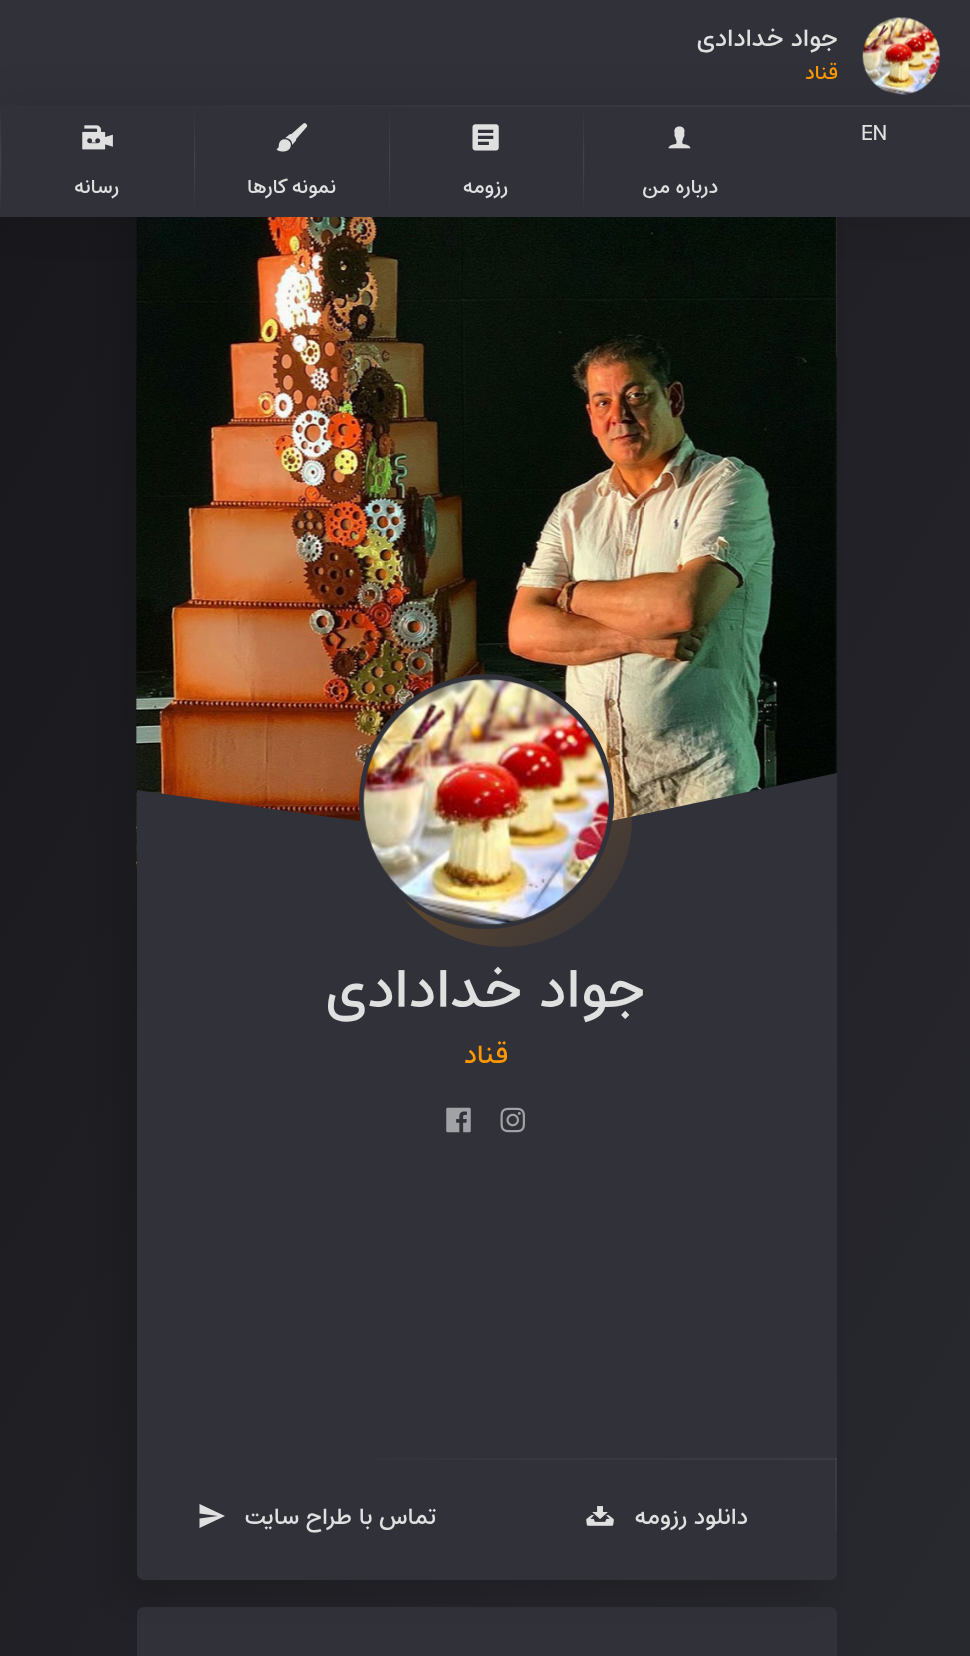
<!DOCTYPE html>
<meta charset="utf-8">
<style>body { margin: 0 } canvas { display: block }</style>
<canvas id="canvas" width="970" height="1656"></canvas>
<img id="img1" src="images/1.png" hidden>
<img id="img2" src="images/6.png" hidden>
<img id="img3" src="images/2.png" hidden>
<img id="img4" src="images/3.png" hidden>
<img id="img5" src="images/4.png" hidden>
<img id="img6" src="images/5.png" hidden>
<img id="img7" src="images/7.png" hidden>
<img id="img8" src="images/8.png" hidden>
<img id="img9" src="images/9.png" hidden>
<img id="img10" src="images/10.png" hidden>
<script>
window.onload = function () {
    const canvas = document.getElementById('canvas');
    const context = canvas.getContext('2d');
    context.miterLimit = 4;
    context.fontKerning = 'normal';
    let gradient;

    context.fillStyle = 'rgb(255, 255, 255)';
    context.fillRect(0, 0, 970, 1656);
    gradient = context.createLinearGradient(-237, 405, 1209, 1252);
    gradient.addColorStop(0, 'rgb(23, 23, 27)');
    gradient.addColorStop(1, 'rgb(40, 40, 47)');
    context.fillStyle = gradient;
    context.fillRect(0, 217, 970, 1439);
    context.fillStyle = 'rgb(49, 49, 58)';
    context.beginPath();
    context.roundRect(137, 1607, 700, 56, 7);
    context.fill();
    context.fillStyle = 'rgba(0, 0, 0, 0.1)';
    context.filter = 'blur(13px)';
    context.beginPath();
    context.roundRect(119, 119, 700, 1479, 7);
    context.fill();
    context.filter = 'none';
    context.fillStyle = 'rgb(49, 49, 58)';
    context.beginPath();
    context.roundRect(137, 102, 700, 1478, 7);
    context.fill();
    context.fillRect(0, 0, 970, 105);
    context.drawImage(document.getElementById('img1'), 862, 17, 78, 78);
    context.fillStyle = 'rgba(255, 152, 0, 0.1)';
    context.fillRect(835, 217, 2, 557);
    context.drawImage(document.getElementById('img2'), 136, 217, 701, 654);
    context.fillStyle = 'rgba(0, 0, 0, 0.1)';
    context.filter = 'blur(22px)';
    context.beginPath();
    context.rect(0, 105, 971, 112);
    context.fill();
    context.filter = 'none';
    context.fillStyle = 'rgb(49, 49, 58)';
    context.fillRect(2, 107, 968, 110);
    gradient = context.createRadialGradient(583, 5.09, 0, 583, 5.09, 2.5);
    gradient.addColorStop(0, 'rgb(71, 72, 81)');
    gradient.addColorStop(0.7, 'rgb(49, 49, 58)');
    context.fillStyle = gradient;
    context.beginPath();
    context.rect(583, 105, 2, 103);
    context.save();
    context.clip();
    context.scale(1, 79 / 2.5);
    context.fillRect(0, 0, 970, 53);
    context.restore();
    gradient = context.createRadialGradient(389, 5.09, 0, 389, 5.09, 2.5);
    gradient.addColorStop(0, 'rgb(71, 72, 81)');
    gradient.addColorStop(0.7, 'rgb(49, 49, 58)');
    context.fillStyle = gradient;
    context.beginPath();
    context.rect(389, 105, 2, 103);
    context.save();
    context.clip();
    context.scale(1, 79 / 2.5);
    context.fillRect(0, 0, 970, 53);
    context.restore();
    gradient = context.createRadialGradient(194, 5.09, 0, 194, 5.09, 2.5);
    gradient.addColorStop(0, 'rgb(71, 72, 81)');
    gradient.addColorStop(0.7, 'rgb(49, 49, 58)');
    context.fillStyle = gradient;
    context.beginPath();
    context.rect(194, 105, 2, 103);
    context.save();
    context.clip();
    context.scale(1, 79 / 2.5);
    context.fillRect(0, 0, 970, 53);
    context.restore();
    gradient = context.createRadialGradient(0, 5.09, 0, 0, 5.09, 2.5);
    gradient.addColorStop(0, 'rgb(71, 72, 81)');
    gradient.addColorStop(0.7, 'rgb(49, 49, 58)');
    context.fillStyle = gradient;
    context.beginPath();
    context.rect(0, 105, 2, 112);
    context.save();
    context.clip();
    context.scale(1, 79 / 2.5);
    context.fillRect(0, 0, 970, 53);
    context.restore();
    gradient = context.createRadialGradient(971, 121370, 0, 971, 121370, 1374);
    gradient.addColorStop(0, 'rgb(71, 72, 81)');
    gradient.addColorStop(0.7, 'rgb(49, 49, 58)');
    context.fillStyle = gradient;
    context.beginPath();
    context.rect(0, 105, 970, 2);
    context.save();
    context.clip();
    context.scale(1, 1.2 / 1374);
    context.fillRect(0, 0, 970, 1896120);
    context.restore();
    context.drawImage(document.getElementById('img3'), 668, 126, 23, 23);
    context.drawImage(document.getElementById('img4'), 472, 124, 27, 27);
    context.drawImage(document.getElementById('img5'), 276, 123, 32, 29);
    context.drawImage(document.getElementById('img6'), 82, 125, 31, 25);
    context.fillStyle = 'rgb(49, 49, 58)';
    context.beginPath();
    context.moveTo(262, 895);
    context.lineTo(837, 773);
    context.lineTo(837, 1323);
    context.lineTo(374, 1422);
    context.closePath();
    context.fill();
    context.beginPath();
    context.moveTo(137, 1333);
    context.lineTo(137, 790);
    context.lineTo(695, 868);
    context.lineTo(620, 1401);
    context.closePath();
    context.fill();
    gradient = context.createLinearGradient(376, 691, 632, 947);
    gradient.addColorStop(0, 'rgba(255, 152, 0, 0.4)');
    gradient.addColorStop(1, 'rgba(255, 152, 0, 0.01)');
    context.fillStyle = gradient;
    context.beginPath();
    context.arc(504, 819, 128, 0, 2 * Math.PI);
    context.fill();
    context.fillStyle = 'rgb(49, 49, 58)';
    context.beginPath();
    context.arc(486.5, 801.5, 125, 0, 2 * Math.PI);
    context.fill();
    context.strokeStyle = 'rgb(49, 49, 58)';
    context.lineWidth = 5;
    context.stroke();
    context.drawImage(document.getElementById('img7'), 363, 679, 246, 246);
    context.drawImage(document.getElementById('img8'), 500, 1107, 25, 26);
    context.drawImage(document.getElementById('img9'), 446, 1107, 25, 26);
    gradient = context.createRadialGradient(837, 1203675, 0, 837, 1203675, 990);
    gradient.addColorStop(0, 'rgb(71, 72, 81)');
    gradient.addColorStop(0.7, 'rgb(49, 49, 58)');
    context.fillStyle = gradient;
    context.beginPath();
    context.rect(377, 1458, 460, 2);
    context.save();
    context.clip();
    context.scale(1, 1.2 / 990);
    context.fillRect(0, 0, 970, 1366200);
    context.restore();
    gradient = context.createRadialGradient(836, 10.11, 0, 836, 10.11, 1.2);
    gradient.addColorStop(0, 'rgba(197, 202, 213, 0.15)');
    gradient.addColorStop(0.7, 'rgba(197, 202, 213, 0)');
    context.fillStyle = gradient;
    context.beginPath();
    context.rect(835, 1458, 2, 75);
    context.save();
    context.clip();
    context.scale(1, 173 / 1.2);
    context.fillRect(0, 0, 970, 12);
    context.restore();
    context.drawImage(document.getElementById('img10'), 586, 1506, 28, 20);
    context.fillStyle = 'rgb(224, 224, 225)';
    context.beginPath();
    context.moveTo(199.5, 1528);
    context.lineTo(199.5, 1518.5);
    context.lineTo(218, 1516);
    context.lineTo(199.5, 1513.5);
    context.lineTo(199.5, 1504);
    context.lineTo(225, 1516);
    context.closePath();
    context.fill();
    context.direction = 'rtl';
    context.font = '500 26.25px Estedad';
    context.fillText('جواد خدادادی', 838, 46);
    context.font = '500 21px Estedad';
    context.fillStyle = 'rgb(255, 152, 0)';
    context.fillText('قناد', 838, 79);
    context.direction = 'ltr';
    context.fillStyle = 'rgb(224, 224, 225)';
    context.fillText('EN', 861, 140);
    context.direction = 'rtl';
    context.fillText('درباره من', 718, 193);
    context.fillText('رزومه', 508, 193);
    context.fillText('نمونه کارها', 336, 193);
    context.fillText('رسانه', 119, 193);
    context.font = '500 59.5px Estedad';
    context.fillText('جواد خدادادی', 646, 1007);
    context.font = '500 28px Estedad';
    context.fillStyle = 'rgb(255, 152, 0)';
    context.fillText('قناد', 508, 1063);
    context.font = '500 24.5px Estedad';
    context.fillStyle = 'rgb(224, 224, 225)';
    context.fillText('دانلود رزومه', 748, 1524);
    context.fillText('تماس با طراح سایت', 436, 1524);
};
</script>
